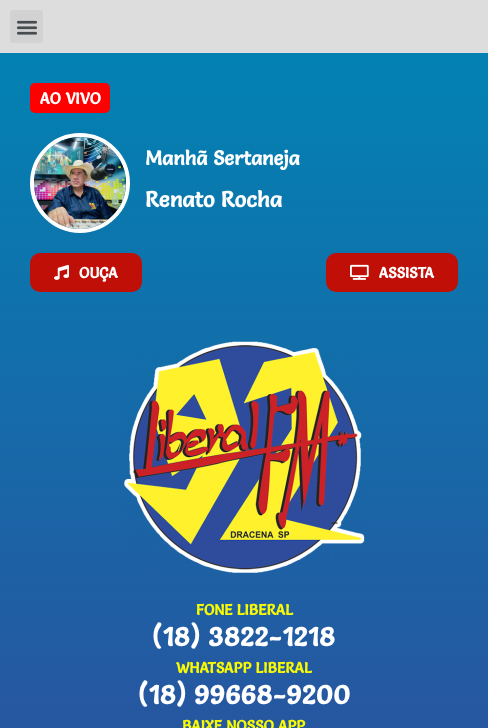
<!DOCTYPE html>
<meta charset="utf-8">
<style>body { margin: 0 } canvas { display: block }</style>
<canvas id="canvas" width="488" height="728"></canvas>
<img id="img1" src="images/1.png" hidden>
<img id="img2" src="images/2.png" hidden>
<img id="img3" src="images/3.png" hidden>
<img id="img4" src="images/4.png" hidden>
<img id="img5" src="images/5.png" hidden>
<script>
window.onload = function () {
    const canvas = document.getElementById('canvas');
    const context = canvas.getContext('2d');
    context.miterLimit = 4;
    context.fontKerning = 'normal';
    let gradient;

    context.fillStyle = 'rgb(221, 221, 221)';
    context.fillRect(0, 0, 488, 728);
    context.fillStyle = 'rgb(210, 210, 210)';
    context.beginPath();
    context.roundRect(10, 10, 33, 33, 3);
    context.fill();
    context.drawImage(document.getElementById('img1'), 17, 20, 20, 15);
    gradient = context.createLinearGradient(244, 53, 244, 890);
    gradient.addColorStop(0, 'rgb(2, 130, 178)');
    gradient.addColorStop(1, 'rgb(47, 76, 156)');
    context.fillStyle = gradient;
    context.fillRect(0, 53, 488, 675);
    context.fillStyle = 'rgb(255, 0, 0)';
    context.beginPath();
    context.roundRect(30, 83, 80, 30, 5);
    context.fill();
    context.beginPath();
    context.arc(80, 183, 48, 0, 2 * Math.PI);
    context.strokeStyle = 'rgb(255, 255, 255)';
    context.lineWidth = 4;
    context.stroke();
    context.drawImage(document.getElementById('img2'), 34, 137, 92, 92);
    context.fillStyle = 'rgb(191, 15, 6)';
    context.beginPath();
    context.roundRect(30, 253, 112, 39, 10);
    context.fill();
    context.drawImage(document.getElementById('img3'), 54, 264, 15, 16);
    context.beginPath();
    context.roundRect(326, 253, 132, 39, 10);
    context.fill();
    context.drawImage(document.getElementById('img4'), 350, 264, 19, 16);
    context.drawImage(document.getElementById('img5'), 124, 341, 241, 232);
    context.font = 'bold 16px Salsa';
    context.fillStyle = 'rgb(255, 255, 255)';
    context.fillText('AO VIVO', 40, 104);
    context.font = 'bold 20px Salsa';
    context.fillText('Manhã Sertaneja', 145, 165);
    context.font = 'bold 22px Salsa';
    context.fillText('Renato Rocha', 145, 207);
    context.font = 'bold 15px Salsa';
    context.fillText('OUÇA', 79, 278);
    context.fillText('ASSISTA', 379, 278);
    context.fillStyle = 'rgb(248, 249, 5)';
    context.fillText('FONE LIBERAL', 196, 615);
    context.font = 'bold 28px Salsa';
    context.fillStyle = 'rgb(255, 255, 255)';
    context.fillText('(18) 3822-1218', 152, 646);
    context.font = 'bold 15px Salsa';
    context.fillStyle = 'rgb(248, 249, 5)';
    context.fillText('WHATSAPP LIBERAL', 176, 673);
    context.font = 'bold 28px Salsa';
    context.fillStyle = 'rgb(255, 255, 255)';
    context.fillText('(18) 99668-9200', 138, 704);
    context.font = 'bold 15px Salsa';
    context.fillStyle = 'rgb(248, 249, 5)';
    context.fillText('BAIXE NOSSO APP', 182, 731);
};
</script>
